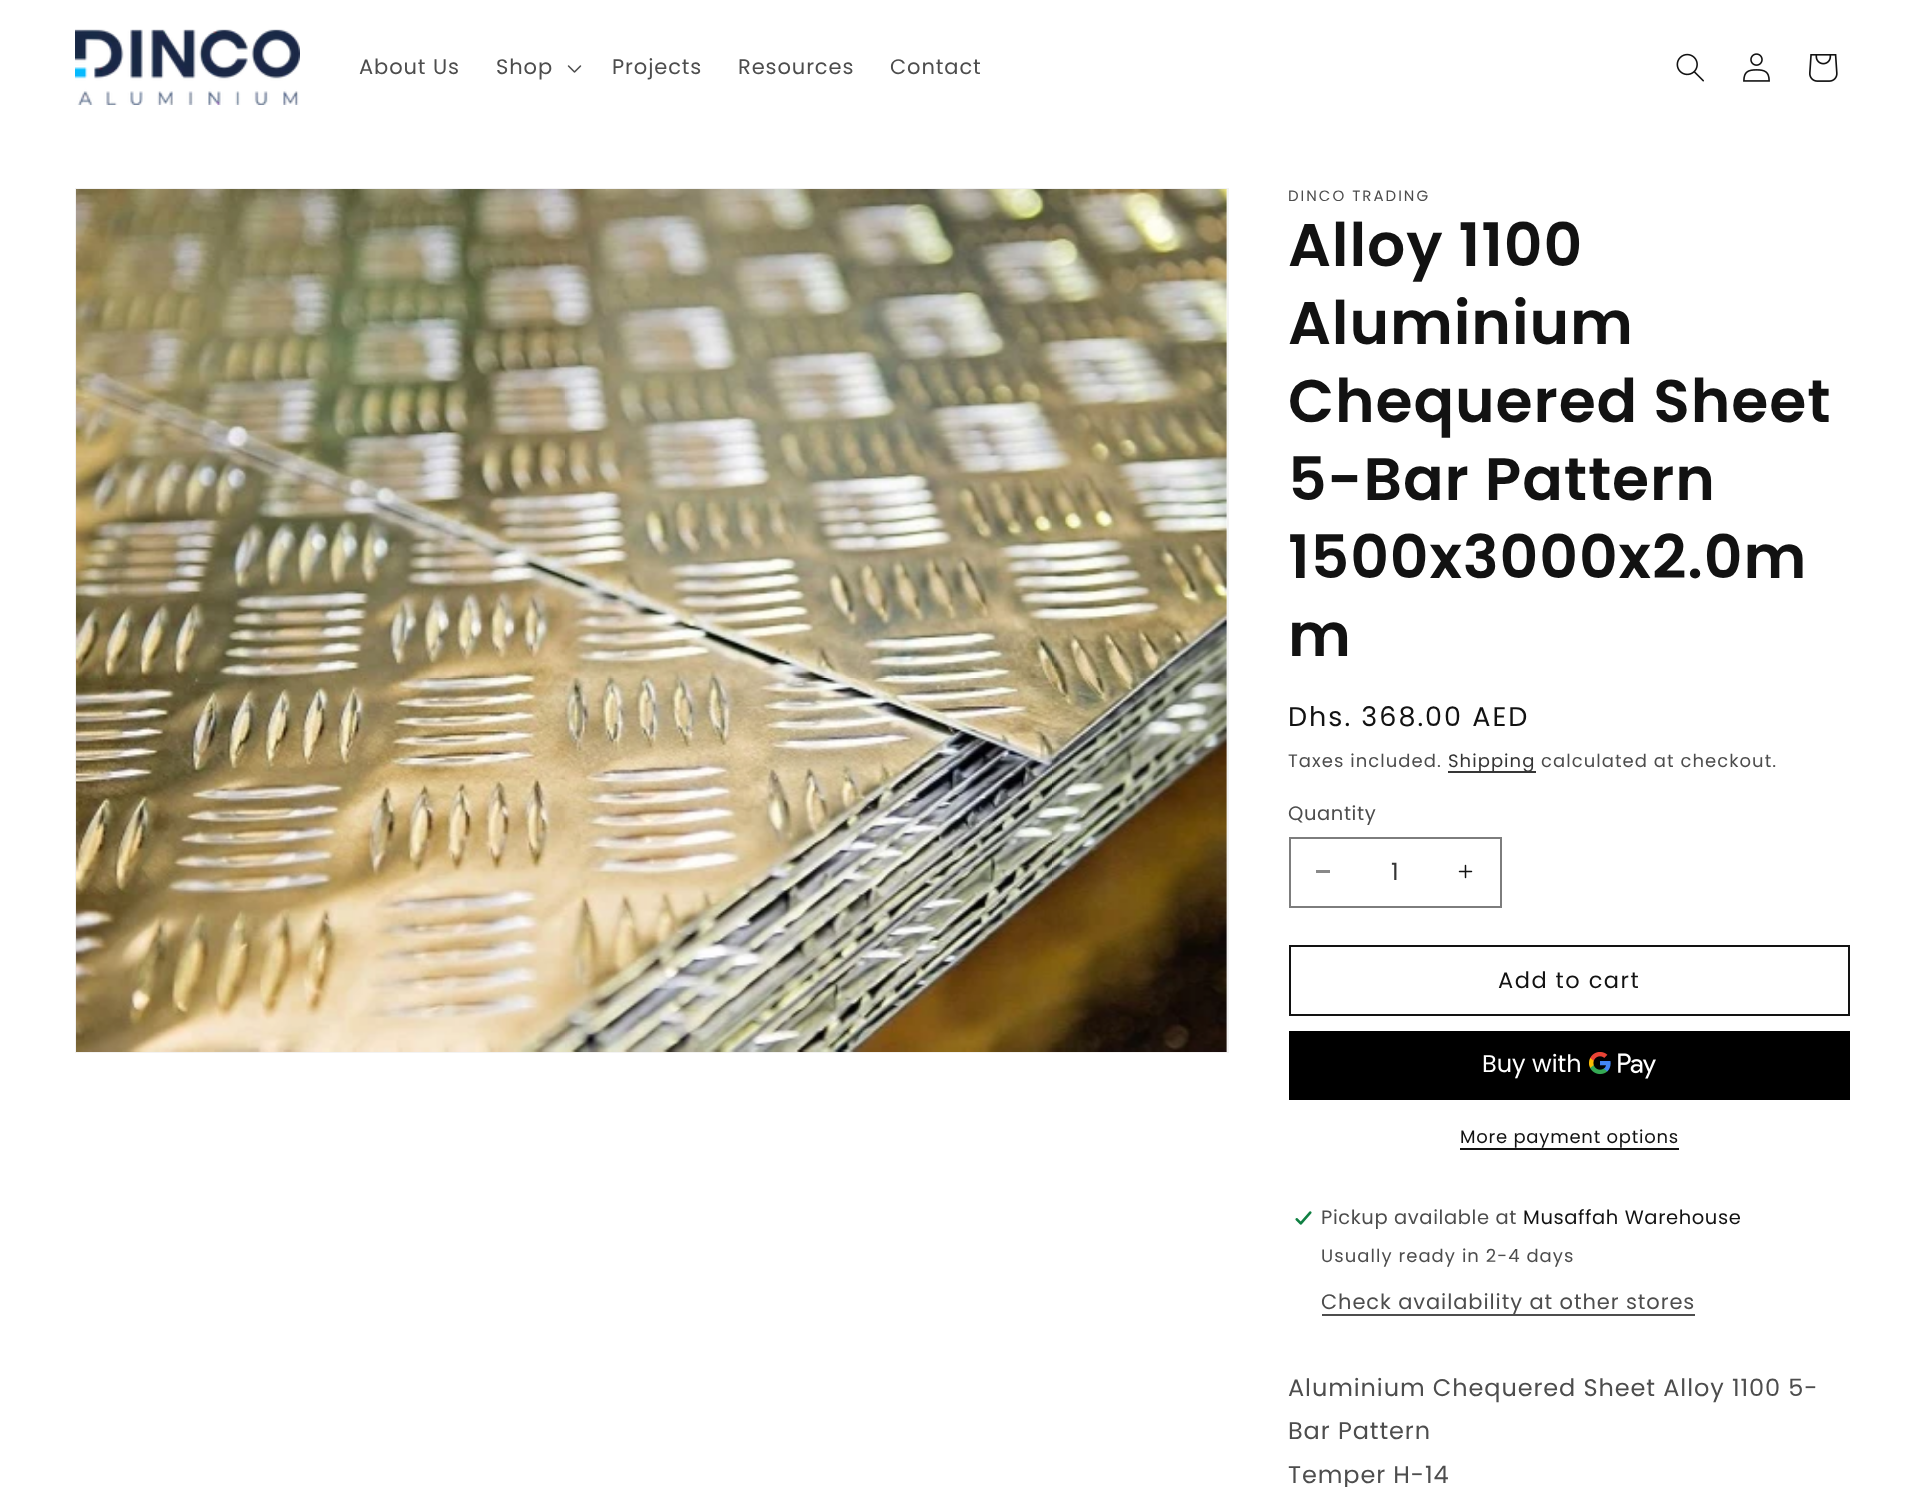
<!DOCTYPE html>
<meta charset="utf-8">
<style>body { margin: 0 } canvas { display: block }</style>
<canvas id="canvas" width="1924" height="1487"></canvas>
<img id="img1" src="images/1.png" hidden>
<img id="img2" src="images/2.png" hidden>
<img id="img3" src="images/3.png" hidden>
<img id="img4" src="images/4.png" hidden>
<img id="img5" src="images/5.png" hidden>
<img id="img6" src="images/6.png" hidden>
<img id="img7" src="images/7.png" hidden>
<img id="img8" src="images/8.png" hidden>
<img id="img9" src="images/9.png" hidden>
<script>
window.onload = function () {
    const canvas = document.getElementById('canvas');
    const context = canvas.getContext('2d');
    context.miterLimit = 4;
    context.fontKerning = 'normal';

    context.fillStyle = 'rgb(255, 255, 255)';
    context.fillRect(0, 0, 1924, 1487);
    context.drawImage(document.getElementById('img1'), 75, 29, 225, 76);
    context.drawImage(document.getElementById('img2'), 567, 65, 15, 8);
    context.drawImage(document.getElementById('img3'), 1676, 53, 28, 29);
    context.drawImage(document.getElementById('img4'), 1743, 53, 27, 29);
    context.drawImage(document.getElementById('img5'), 1809, 54, 29, 28);
    context.strokeStyle = 'rgb(243, 243, 243)';
    context.lineWidth = 2;
    context.strokeRect(76, 189, 1152, 863);
    context.drawImage(document.getElementById('img6'), 76, 189, 1151, 863);
    context.fillStyle = 'rgb(54, 54, 54)';
    context.fillRect(1448, 771, 88, 2);
    context.fillStyle = 'rgb(137, 137, 137)';
    context.fillRect(1316, 870, 14, 3);
    context.drawImage(document.getElementById('img7'), 1458, 864, 15, 15);
    context.strokeStyle = 'rgb(125, 125, 125)';
    context.strokeRect(1290, 838, 211, 69);
    context.strokeStyle = 'rgb(18, 18, 18)';
    context.strokeRect(1290, 946, 559, 69);
    context.fillStyle = 'rgb(0, 0, 0)';
    context.fillRect(1289, 1031, 561, 69);
    context.drawImage(document.getElementById('img8'), 1589, 1052, 67, 27);
    context.fillStyle = 'rgb(18, 18, 18)';
    context.fillRect(1460, 1148, 219, 2);
    context.drawImage(document.getElementById('img9'), 1294, 1211, 18, 14);
    context.fillStyle = 'rgb(77, 77, 77)';
    context.fillRect(1322, 1314, 373, 2);
    context.letterSpacing = '0.9px';
    context.font = '21px Poppins';
    context.fillText('About Us', 359, 74);
    context.fillText('Shop', 496, 74);
    context.fillText('Projects', 612, 74);
    context.fillText('Resources', 738, 74);
    context.fillText('Contact', 890, 74);
    context.letterSpacing = '2px';
    context.font = '15px Poppins';
    context.fillText('DINCO TRADING', 1288, 201);
    context.letterSpacing = '0.9px';
    context.font = '600 60px Poppins';
    context.fillStyle = 'rgb(18, 18, 18)';
    context.fillText('Alloy 1100', 1288, 266);
    context.fillText('Aluminium', 1288, 344);
    context.fillText('Chequered Sheet', 1288, 422);
    context.fillText('5-Bar Pattern', 1288, 500);
    context.fillText('1500x3000x2.0m', 1288, 578);
    context.fillText('m', 1288, 656);
    context.letterSpacing = '2px';
    context.font = '27px Poppins';
    context.fillText('Dhs. 368.00 AED', 1288, 726);
    context.letterSpacing = '1.05px';
    context.font = '18px Poppins';
    context.fillStyle = 'rgb(77, 77, 77)';
    context.fillText('Taxes included.', 1288, 767);
    context.fillStyle = 'rgb(53, 53, 53)';
    context.fillText('Shipping', 1448, 767);
    context.fillStyle = 'rgb(77, 77, 77)';
    context.fillText('calculated at checkout.', 1541, 767);
    context.letterSpacing = '0.6px';
    context.font = '19.5px Poppins';
    context.fillText('Quantity', 1288, 820);
    context.letterSpacing = '0px';
    context.font = '24px Poppins';
    context.fillStyle = 'rgb(53, 53, 53)';
    context.fillText('1', 1391, 880);
    context.letterSpacing = '1.5px';
    context.font = '22.5px Poppins';
    context.fillStyle = 'rgb(18, 18, 18)';
    context.fillText('Add to cart', 1498, 988);
    context.letterSpacing = '0px';
    context.font = '24px Poppins';
    context.fillStyle = 'rgb(255, 255, 255)';
    context.fillText('Buy with', 1482, 1072);
    context.letterSpacing = '0.75px';
    context.font = '18px Poppins';
    context.fillStyle = 'rgb(18, 18, 18)';
    context.fillText('More payment options', 1460, 1143);
    context.letterSpacing = '0.6px';
    context.font = '19.5px Poppins';
    context.fillStyle = 'rgb(77, 77, 77)';
    context.fillText('Pickup available at', 1321, 1224);
    context.fillStyle = 'rgb(18, 18, 18)';
    context.fillText('Musaffah Warehouse', 1523, 1224);
    context.letterSpacing = '1.05px';
    context.font = '18px Poppins';
    context.fillStyle = 'rgb(77, 77, 77)';
    context.fillText('Usually ready in 2-4 days', 1321, 1262);
    context.letterSpacing = '0.9px';
    context.font = '21px Poppins';
    context.fillText('Check availability at other stores', 1321, 1309);
    context.font = '24px Poppins';
    context.fillText('Aluminium Chequered Sheet Alloy 1100 5-', 1288, 1396);
    context.fillText('Bar Pattern', 1288, 1439);
    context.fillText('Temper H-14', 1288, 1483);
};
</script>
